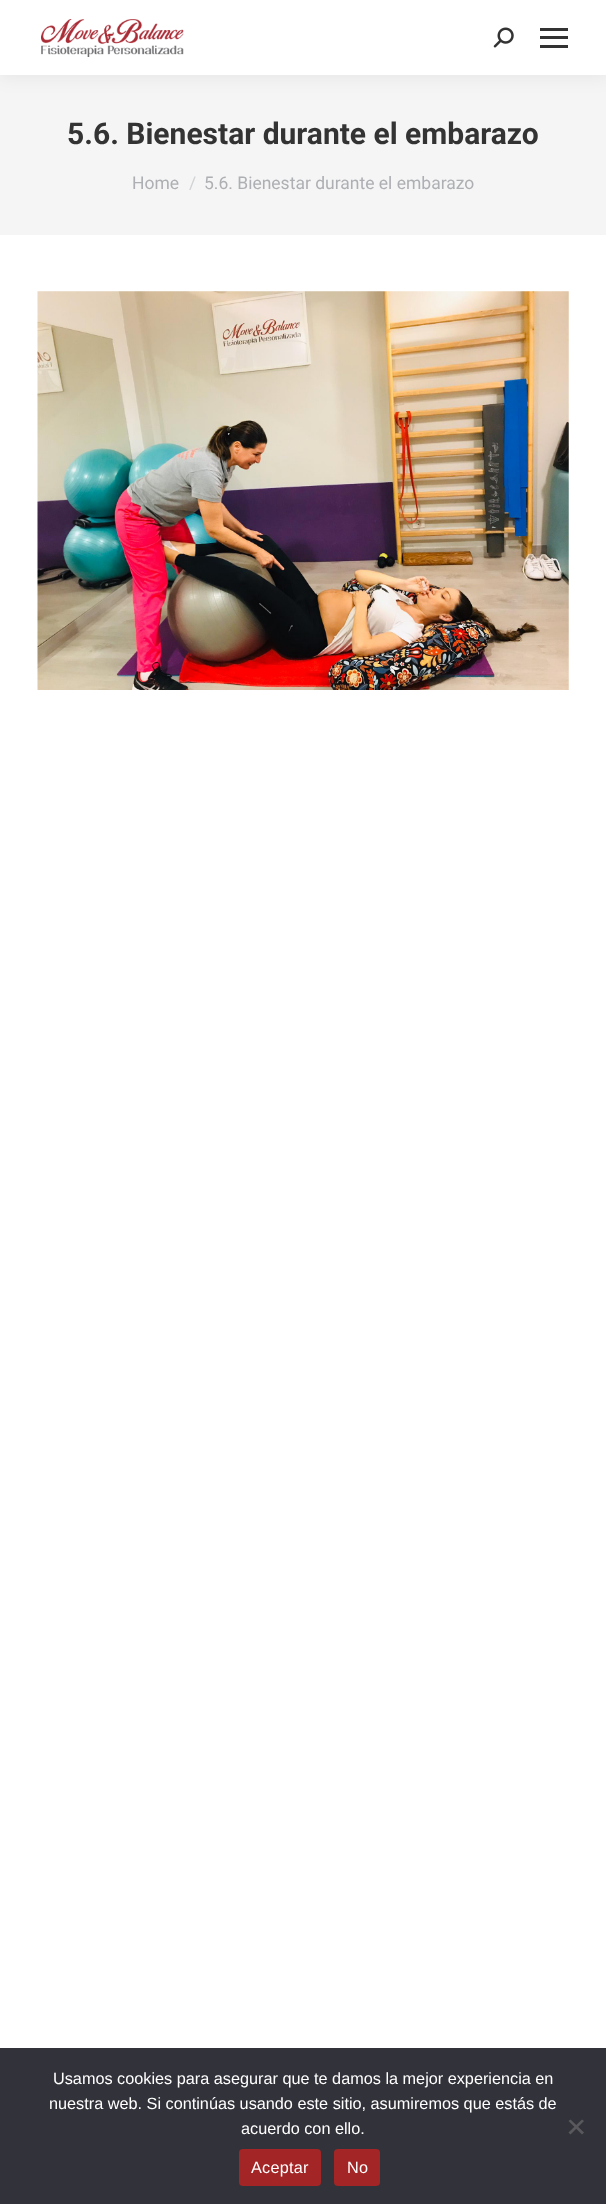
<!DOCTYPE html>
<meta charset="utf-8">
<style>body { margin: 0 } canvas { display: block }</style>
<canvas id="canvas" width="606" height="2204"></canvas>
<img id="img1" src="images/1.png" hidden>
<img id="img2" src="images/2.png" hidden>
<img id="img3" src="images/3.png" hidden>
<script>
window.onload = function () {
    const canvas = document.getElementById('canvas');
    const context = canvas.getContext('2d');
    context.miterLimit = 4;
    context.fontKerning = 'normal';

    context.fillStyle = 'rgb(255, 255, 255)';
    context.fillRect(0, 0, 606, 2204);
    context.fillStyle = 'rgb(245, 245, 245)';
    context.fillRect(0, 75, 606, 160);
    context.fillStyle = 'rgba(0, 0, 0, 0.07)';
    context.filter = 'blur(9.5px)';
    context.beginPath();
    context.rect(-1, -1, 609, 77);
    context.fill();
    context.filter = 'none';
    context.fillStyle = 'rgb(255, 255, 255)';
    context.fillRect(0, 0, 606, 75);
    context.drawImage(document.getElementById('img1'), 41, 19, 143, 38);
    context.drawImage(document.getElementById('img2'), 493, 27, 21, 21);
    context.fillStyle = 'rgb(51, 51, 51)';
    context.fillRect(540, 28, 28, 3);
    context.fillRect(540, 36, 28, 3);
    context.fillRect(540, 45, 28, 3);
    context.drawImage(document.getElementById('img3'), 37, 291, 532, 399);
    context.fillStyle = 'rgb(50, 50, 58)';
    context.fillRect(0, 2048, 606, 156);
    context.fillStyle = 'rgb(89, 89, 93)';
    context.beginPath();
    context.moveTo(582, 2119.5);
    context.lineTo(584, 2121);
    context.lineTo(570.5, 2134.5);
    context.lineTo(568.5, 2132.5);
    context.closePath();
    context.fill();
    context.beginPath();
    context.moveTo(568.5, 2121);
    context.lineTo(570.5, 2119.5);
    context.lineTo(584, 2132.5);
    context.lineTo(582, 2134.5);
    context.closePath();
    context.fill();
    context.fillStyle = 'rgb(163, 37, 37)';
    context.beginPath();
    context.roundRect(239, 2149, 82, 37, 4);
    context.fill();
    context.beginPath();
    context.roundRect(334, 2149, 46, 37, 4);
    context.fill();
    context.font = 'bold 30px Roboto';
    context.fillStyle = 'rgb(51, 51, 51)';
    context.fillText('5.6. Bienestar durante el embarazo', 67, 144);
    context.font = '17.5px Roboto';
    context.fillStyle = 'rgb(173, 175, 179)';
    context.fillText('Home', 132, 189);
    context.fillStyle = 'rgb(209, 210, 212)';
    context.fillText('/', 189, 189);
    context.fillStyle = 'rgb(173, 175, 179)';
    context.fillText('5.6. Bienestar durante el embarazo', 204, 189);
    context.font = '16.25px Liberation Sans';
    context.fillStyle = 'rgb(255, 255, 255)';
    context.fillText('Usamos cookies para asegurar que te damos la mejor experiencia en', 53, 2084);
    context.fillText('nuestra web. Si continúas usando este sitio, asumiremos que estás de', 49, 2109);
    context.fillText('acuerdo con ello.', 241, 2134);
    context.letterSpacing = '0.25px';
    context.fillText('Aceptar', 251, 2173);
    context.fillText('No', 347, 2173);
};
</script>
